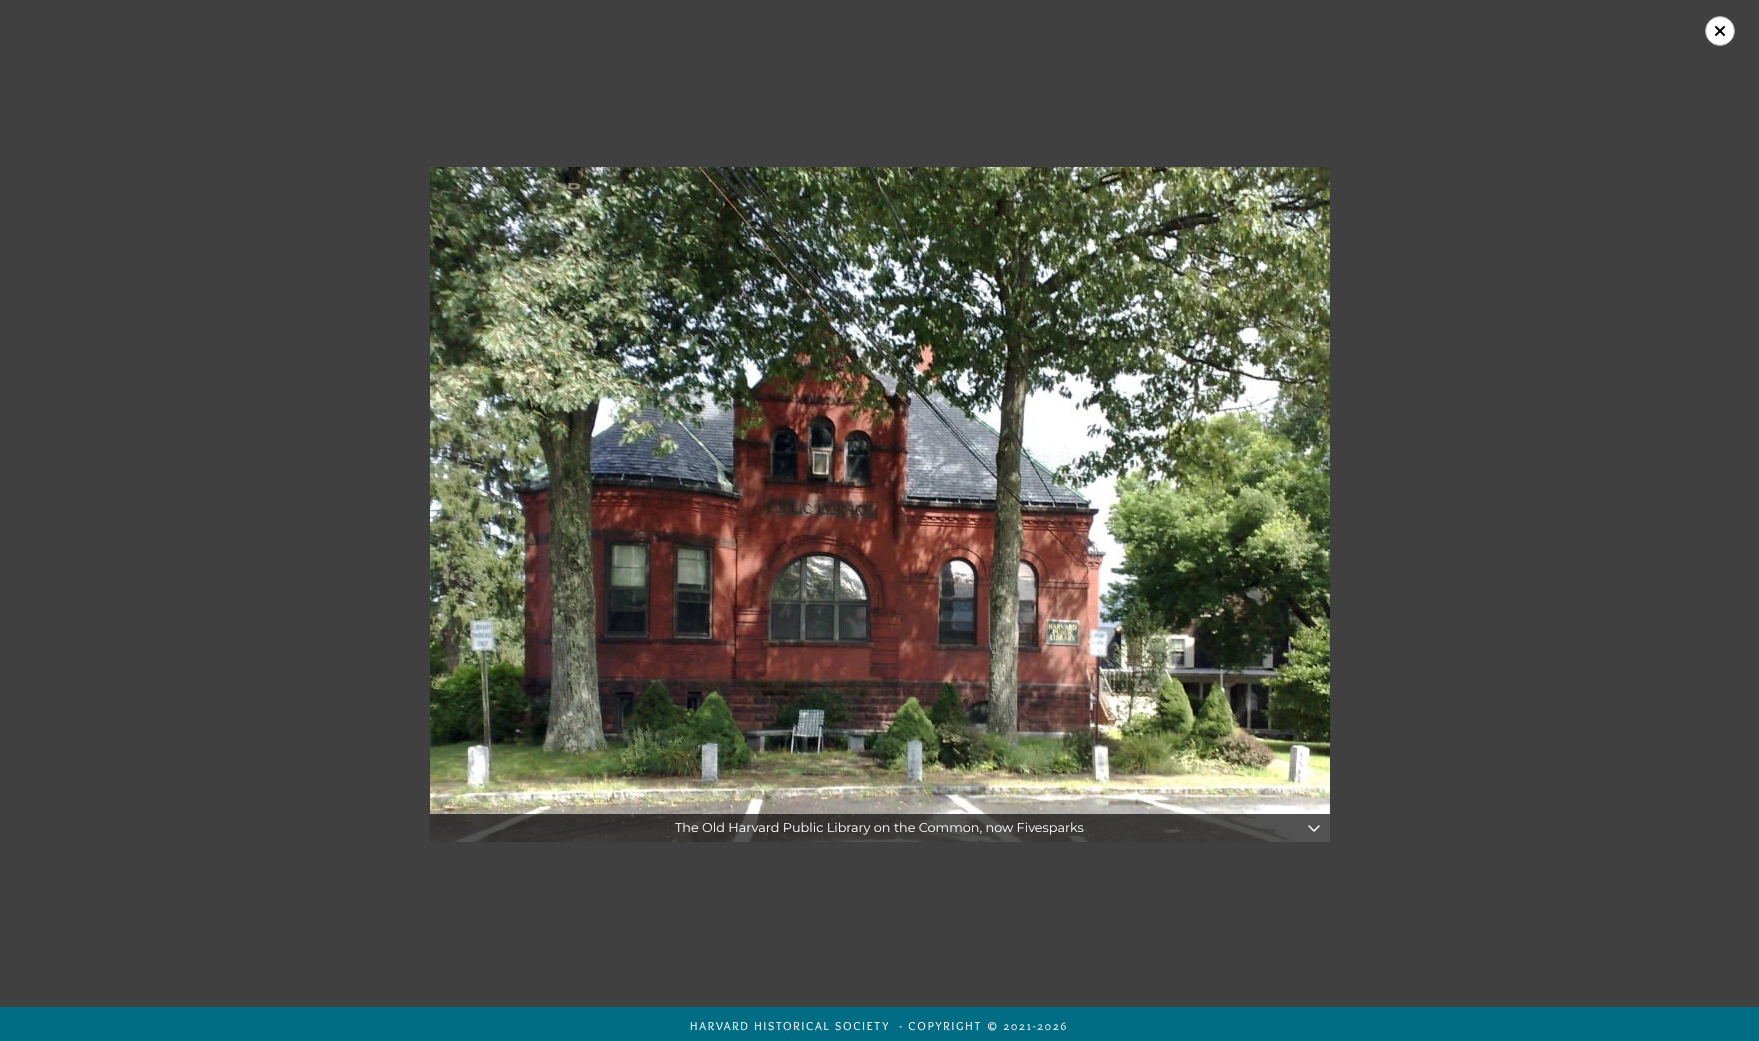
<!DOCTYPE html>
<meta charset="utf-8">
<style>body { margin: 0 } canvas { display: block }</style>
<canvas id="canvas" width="1759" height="1041"></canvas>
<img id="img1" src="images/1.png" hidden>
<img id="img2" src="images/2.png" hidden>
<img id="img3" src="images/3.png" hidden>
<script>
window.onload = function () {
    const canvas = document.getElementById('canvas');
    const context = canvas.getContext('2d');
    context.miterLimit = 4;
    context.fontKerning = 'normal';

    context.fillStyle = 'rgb(64, 64, 64)';
    context.fillRect(0, 0, 1759, 1041);
    context.fillStyle = 'rgb(255, 255, 255)';
    context.beginPath();
    context.arc(1720, 31, 14.5, 0, 2 * Math.PI);
    context.fill();
    context.strokeStyle = 'rgb(166, 166, 166)';
    context.stroke();
    context.drawImage(document.getElementById('img1'), 1715, 26, 10, 10);
    context.drawImage(document.getElementById('img2'), 430, 167, 900, 675);
    context.fillStyle = 'rgba(0, 0, 0, 0.68)';
    context.fillRect(430, 814, 900, 28);
    context.drawImage(document.getElementById('img3'), 1308, 825, 12, 7);
    context.fillStyle = 'rgb(0, 109, 133)';
    context.fillRect(0, 1007, 1759, 34);
    context.font = '12.8px Montserrat';
    context.fillStyle = 'rgb(255, 255, 255)';
    context.fillText('The Old Harvard Public Library on the Common, now Fivesparks', 675, 832);
    context.letterSpacing = '1.8px';
    context.font = '12px Overlock SC';
    context.fillText('HARVARD HISTORICAL SOCIETY  - COPYRIGHT © 2021-2026', 690, 1030);
};
</script>
